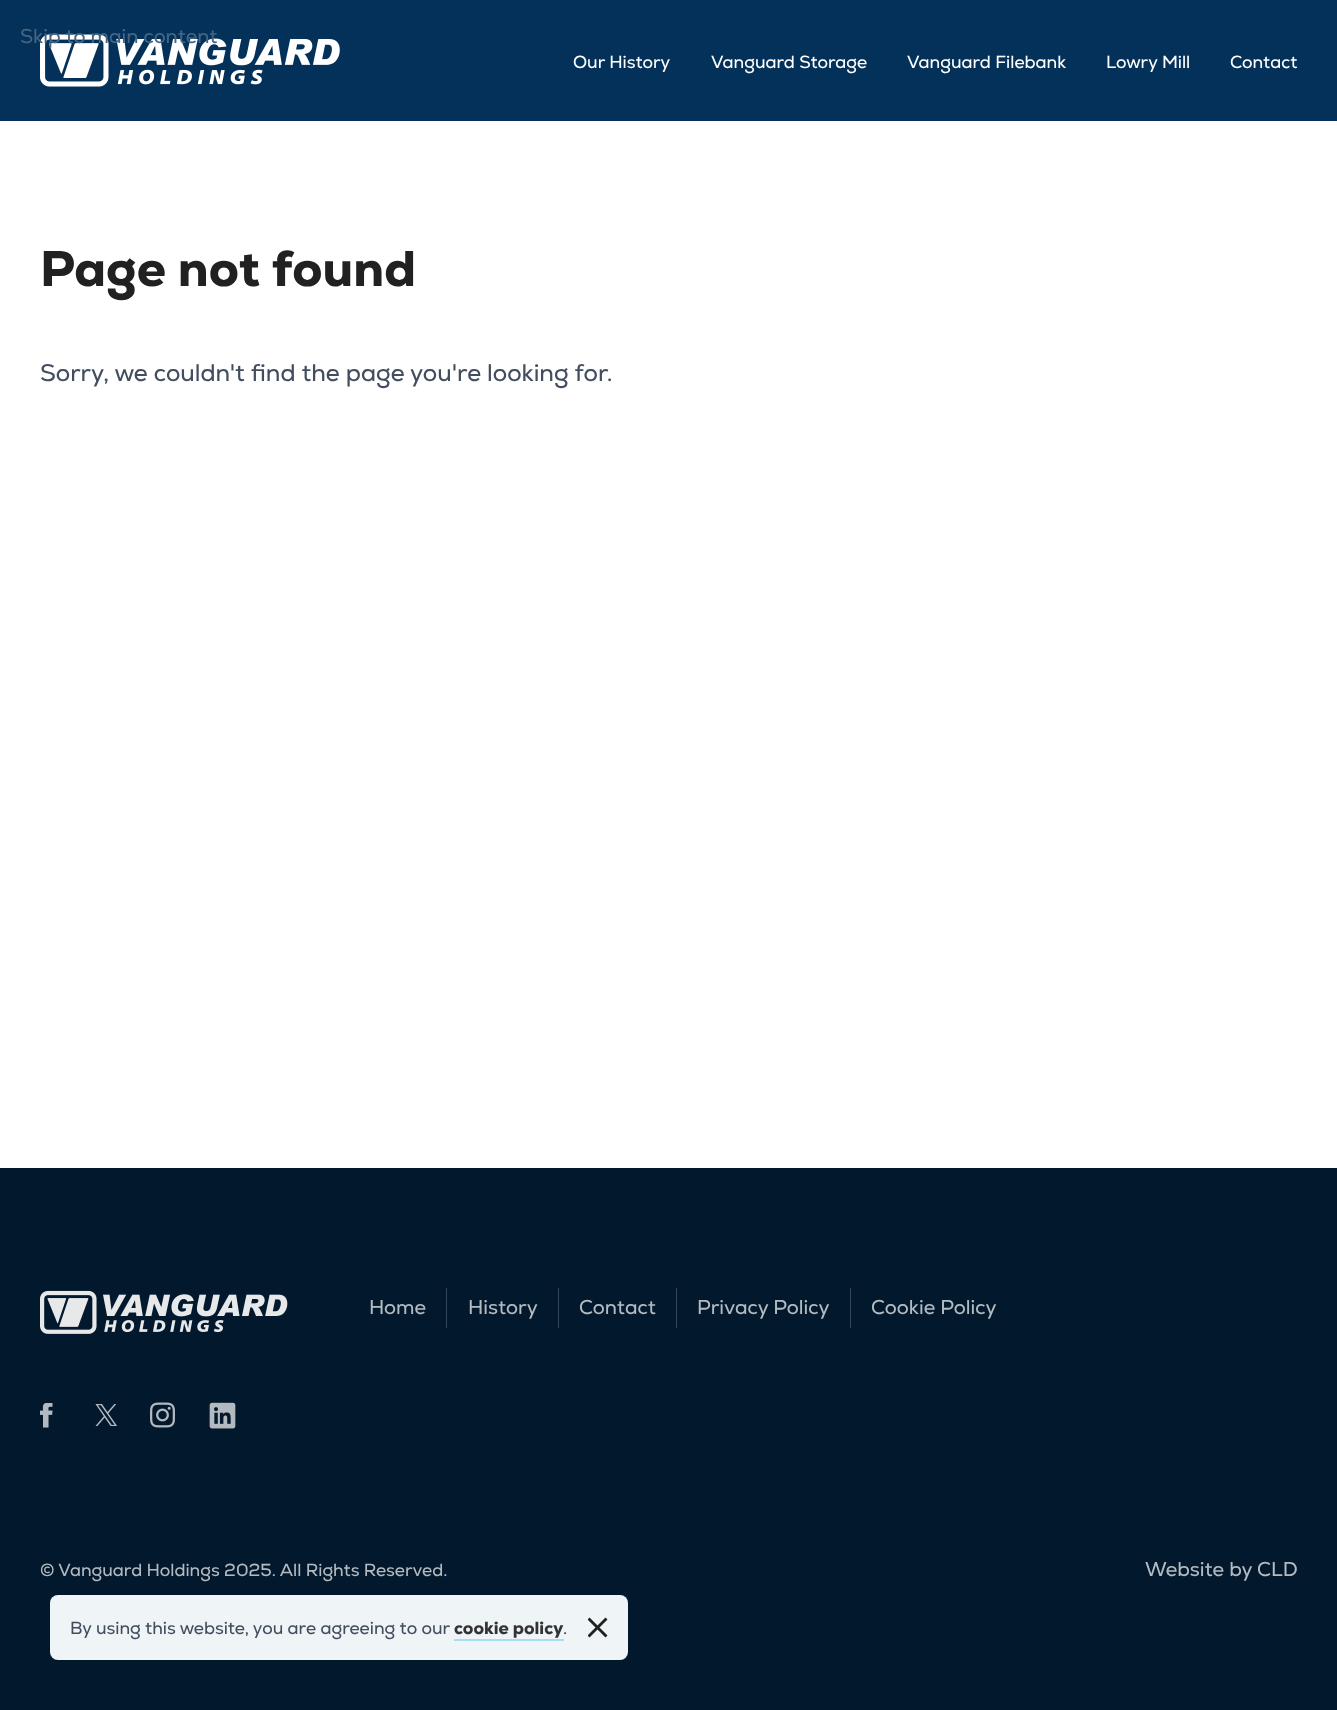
<!DOCTYPE html>
<meta charset="utf-8">
<style>body { margin: 0 } canvas { display: block }</style>
<canvas id="canvas" width="1337" height="1710"></canvas>
<img id="img1" src="images/1.png" hidden>
<img id="img2" src="images/2.png" hidden>
<img id="img3" src="images/3.png" hidden>
<img id="img4" src="images/4.png" hidden>
<img id="img5" src="images/5.png" hidden>
<img id="img6" src="images/6.png" hidden>
<img id="img7" src="images/7.png" hidden>
<script>
window.onload = function () {
    const canvas = document.getElementById('canvas');
    const context = canvas.getContext('2d');
    context.miterLimit = 4;
    context.fontKerning = 'normal';

    context.fillStyle = 'rgb(255, 255, 255)';
    context.fillRect(0, 0, 1337, 1710);
    context.fillStyle = 'rgb(4, 49, 90)';
    context.fillRect(0, 0, 1337, 121);
    context.drawImage(document.getElementById('img1'), 40, 34, 300, 53);
    context.fillStyle = 'rgb(2, 24, 44)';
    context.fillRect(0, 1168, 1337, 542);
    context.drawImage(document.getElementById('img2'), 40, 1290, 248, 44);
    context.drawImage(document.getElementById('img3'), 40, 1403, 13, 25);
    context.drawImage(document.getElementById('img4'), 95, 1404, 22, 22);
    context.drawImage(document.getElementById('img5'), 150, 1402, 25, 26);
    context.drawImage(document.getElementById('img6'), 209, 1402, 27, 27);
    context.fillStyle = 'rgb(53, 70, 86)';
    context.fillRect(446, 1288, 1, 40);
    context.fillRect(558, 1288, 1, 40);
    context.fillRect(676, 1288, 1, 40);
    context.fillRect(850, 1288, 1, 40);
    context.fillStyle = 'rgb(239, 244, 247)';
    context.beginPath();
    context.roundRect(50, 1595, 578, 65, 8);
    context.fill();
    context.fillStyle = 'rgb(164, 222, 242)';
    context.beginPath();
    context.moveTo(454, 1639);
    context.lineTo(454, 1641);
    context.lineTo(564, 1641);
    context.lineTo(564, 1619);
    context.lineTo(564, 1639);
    context.closePath();
    context.fill();
    context.drawImage(document.getElementById('img7'), 588, 1617, 20, 21);
    context.font = '20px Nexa';
    context.fillStyle = 'rgb(67, 101, 131)';
    context.fillText('Skip to main content', 20, 43);
    context.font = '17.5px Nexa';
    context.fillStyle = 'rgb(255, 255, 255)';
    context.fillText('Our History', 573, 68);
    context.fillText('Vanguard Storage', 711, 68);
    context.fillText('Vanguard Filebank', 907, 68);
    context.fillText('Lowry Mill', 1106, 68);
    context.fillText('Contact', 1230, 68);
    context.font = '900 50px Nexa';
    context.fillStyle = 'rgb(33, 33, 33)';
    context.fillText('Page not found', 40, 286);
    context.font = '24px Nexa';
    context.fillStyle = 'rgb(66, 78, 95)';
    context.fillText('Sorry, we couldn\'t find the page you\'re looking for.', 40, 381);
    context.font = '20px Nexa';
    context.fillStyle = 'rgb(179, 186, 192)';
    context.fillText('Home', 369, 1314);
    context.fillText('History', 468, 1314);
    context.fillText('Contact', 579, 1314);
    context.fillText('Privacy Policy', 697, 1314);
    context.fillText('Cookie Policy', 871, 1314);
    context.font = '17.5px Nexa';
    context.fillText('© Vanguard Holdings 2025. All Rights Reserved.', 40, 1576);
    context.font = '20px Nexa';
    context.fillText('Website by CLD', 1145, 1576);
    context.font = '17.5px Nexa';
    context.fillStyle = 'rgb(66, 78, 95)';
    context.fillText('By using this website, you are agreeing to our', 70, 1634);
    context.font = '900 17.5px Nexa';
    context.fillStyle = 'rgb(51, 51, 51)';
    context.fillText('cookie policy', 454, 1634);
    context.font = '17.5px Nexa';
    context.fillStyle = 'rgb(66, 78, 95)';
    context.fillText('.', 563, 1634);
};
</script>
